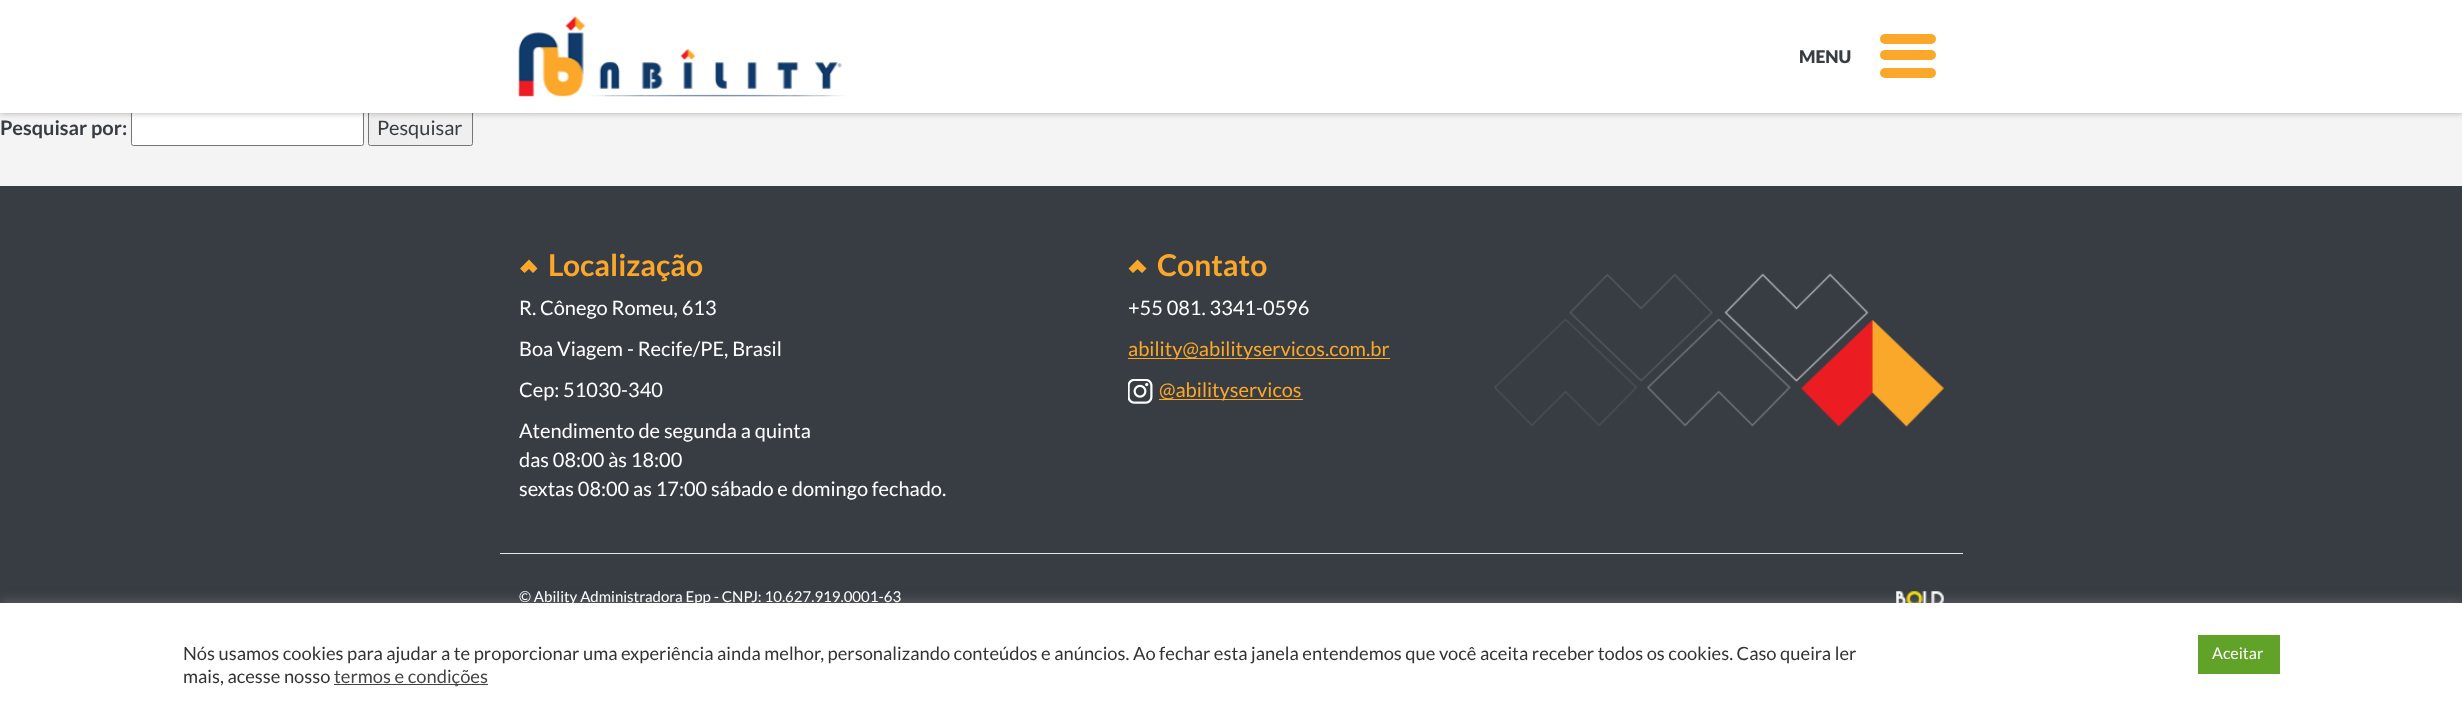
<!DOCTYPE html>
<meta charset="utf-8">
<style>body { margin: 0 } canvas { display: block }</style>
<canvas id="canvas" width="2462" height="704"></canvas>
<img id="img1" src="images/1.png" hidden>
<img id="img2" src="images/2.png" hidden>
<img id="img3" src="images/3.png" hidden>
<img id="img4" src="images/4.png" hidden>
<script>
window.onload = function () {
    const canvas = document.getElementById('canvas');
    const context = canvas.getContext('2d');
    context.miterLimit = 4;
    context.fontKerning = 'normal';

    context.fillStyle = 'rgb(244, 244, 244)';
    context.fillRect(0, 0, 2462, 704);
    context.fillStyle = 'rgb(255, 255, 255)';
    context.beginPath();
    context.roundRect(131.5, 110.5, 232, 35, 2);
    context.fill();
    context.strokeStyle = 'rgb(118, 118, 118)';
    context.stroke();
    context.fillStyle = 'rgb(239, 239, 239)';
    context.beginPath();
    context.roundRect(368.5, 110.5, 104, 35, 2);
    context.fill();
    context.stroke();
    context.fillStyle = 'rgba(0, 0, 0, 0.3)';
    context.filter = 'blur(3px)';
    context.beginPath();
    context.rect(0, 0, 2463, 113);
    context.fill();
    context.filter = 'none';
    context.fillStyle = 'rgb(255, 255, 255)';
    context.fillRect(0, 0, 2462, 113);
    context.drawImage(document.getElementById('img1'), 518, 16, 327, 81);
    context.fillStyle = 'rgb(251, 168, 42)';
    context.beginPath();
    context.roundRect(1880, 34, 56, 10, 5);
    context.fill();
    context.beginPath();
    context.roundRect(1880, 50, 56, 10, 5);
    context.fill();
    context.beginPath();
    context.roundRect(1880, 68, 56, 10, 5);
    context.fill();
    context.fillStyle = 'rgb(56, 61, 67)';
    context.fillRect(0, 186, 2462, 417);
    context.fillStyle = 'rgb(251, 168, 42)';
    context.beginPath();
    context.moveTo(537.5, 268.5);
    context.lineTo(529, 259.5);
    context.lineTo(520, 268.5);
    context.lineTo(524.5, 273);
    context.lineTo(529, 269);
    context.lineTo(533, 273);
    context.closePath();
    context.fill();
    context.beginPath();
    context.moveTo(1146.5, 268.5);
    context.lineTo(1137.5, 259.5);
    context.lineTo(1128.5, 268.5);
    context.lineTo(1133, 273);
    context.lineTo(1137.5, 269);
    context.lineTo(1142, 273);
    context.closePath();
    context.fill();
    context.fillRect(1128, 358, 262, 1);
    context.drawImage(document.getElementById('img2'), 1128, 379, 25, 25);
    context.fillRect(1159, 399, 144, 1);
    context.drawImage(document.getElementById('img3'), 1494, 273, 450, 154);
    context.fillStyle = 'rgb(229, 229, 229)';
    context.fillRect(500, 553, 1463, 1);
    context.drawImage(document.getElementById('img4'), 1896, 591, 48, 12);
    context.fillStyle = 'rgba(172, 171, 171, 0.3)';
    context.filter = 'blur(6px)';
    context.beginPath();
    context.rect(0, 601, 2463, 103);
    context.fill();
    context.filter = 'none';
    context.fillStyle = 'rgb(255, 255, 255)';
    context.fillRect(0, 603, 2462, 101);
    context.fillStyle = 'rgb(68, 68, 68)';
    context.fillRect(334, 684, 154, 1);
    context.fillStyle = 'rgb(97, 162, 41)';
    context.fillRect(2198, 635, 82, 39);
    context.font = '900 17.5px Lato';
    context.fillStyle = 'rgb(56, 61, 67)';
    context.fillText('MENU', 1799, 63);
    context.font = 'bold 20px Lato';
    context.fillText('Pesquisar por:', 0, 135);
    context.font = '20px Lato';
    context.fillText('Pesquisar', 377, 135);
    context.font = 'bold 30px Lato';
    context.fillStyle = 'rgb(251, 168, 42)';
    context.fillText('Localização', 548, 276);
    context.font = '20px Lato';
    context.fillStyle = 'rgb(255, 255, 255)';
    context.fillText('R. Cônego Romeu, 613', 519, 315);
    context.fillText('Boa Viagem - Recife/PE, Brasil', 519, 356);
    context.fillText('Cep: 51030-340', 519, 397);
    context.fillText('Atendimento de segunda a quinta', 519, 438);
    context.fillText('das 08:00 às 18:00', 519, 467);
    context.fillText('sextas 08:00 as 17:00 sábado e domingo fechado.', 519, 496);
    context.font = 'bold 30px Lato';
    context.fillStyle = 'rgb(251, 168, 42)';
    context.fillText('Contato', 1157, 276);
    context.font = '20px Lato';
    context.fillStyle = 'rgb(255, 255, 255)';
    context.fillText('+55 081. 3341-0596', 1128, 315);
    context.fillStyle = 'rgb(251, 168, 42)';
    context.fillText('ability@abilityservicos.com.br', 1128, 356);
    context.fillText('@abilityservicos', 1159, 397);
    context.font = '15px Lato';
    context.fillStyle = 'rgb(255, 255, 255)';
    context.fillText('© Ability Administradora Epp - CNPJ: 10.627.919.0001-63', 519, 602);
    context.font = '18.33px Lato';
    context.fillStyle = 'rgb(51, 51, 51)';
    context.fillText('Nós usamos cookies para ajudar a te proporcionar uma experiência ainda melhor, personalizando conteúdos e anúncios. Ao fechar esta janela entendemos que você aceita receber todos os cookies. Caso queira ler', 183, 660);
    context.fillText('mais, acesse nosso', 183, 683);
    context.fillStyle = 'rgb(68, 68, 68)';
    context.fillText('termos e condições', 334, 683);
    context.font = '16px Lato';
    context.fillStyle = 'rgb(255, 255, 255)';
    context.fillText('Aceitar', 2212, 659);
};
</script>
